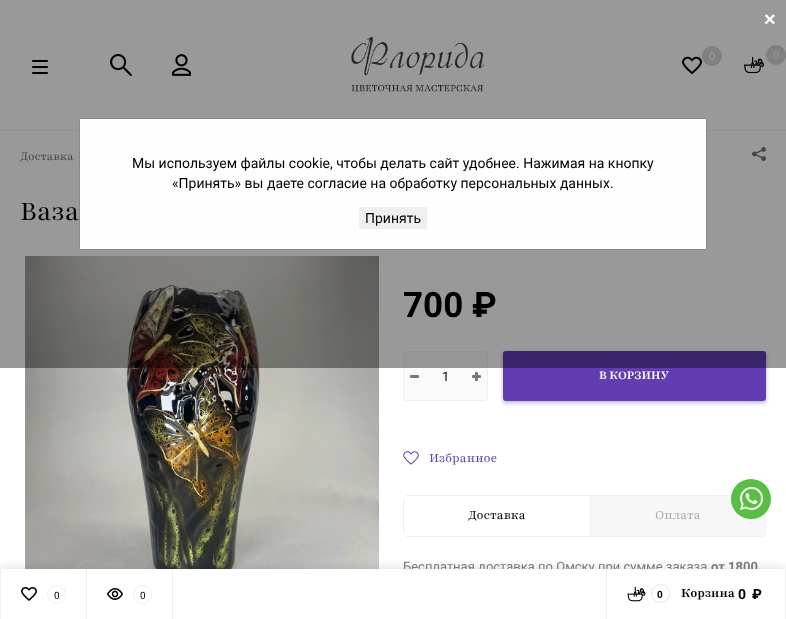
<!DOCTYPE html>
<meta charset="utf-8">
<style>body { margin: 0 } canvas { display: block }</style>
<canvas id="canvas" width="786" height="619"></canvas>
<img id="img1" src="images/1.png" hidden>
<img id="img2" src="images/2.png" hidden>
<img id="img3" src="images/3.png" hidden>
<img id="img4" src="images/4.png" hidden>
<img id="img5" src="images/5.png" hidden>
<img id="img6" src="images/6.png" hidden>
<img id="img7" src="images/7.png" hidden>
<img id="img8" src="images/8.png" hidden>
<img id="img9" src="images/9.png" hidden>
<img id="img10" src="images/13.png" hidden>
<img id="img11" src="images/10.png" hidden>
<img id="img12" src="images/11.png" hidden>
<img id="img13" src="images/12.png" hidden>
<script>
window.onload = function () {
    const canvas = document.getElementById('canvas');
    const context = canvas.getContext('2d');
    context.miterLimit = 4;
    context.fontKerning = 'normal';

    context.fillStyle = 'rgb(255, 255, 255)';
    context.fillRect(0, 0, 786, 619);
    context.fillStyle = 'rgb(240, 240, 240)';
    context.fillRect(0, 130, 786, 1);
    context.fillStyle = 'rgb(0, 0, 0)';
    context.beginPath();
    context.roundRect(32, 66, 16, 2, 1);
    context.fill();
    context.beginPath();
    context.roundRect(32, 60, 16, 2, 1);
    context.fill();
    context.beginPath();
    context.roundRect(32, 72, 16, 2, 1);
    context.fill();
    context.drawImage(document.getElementById('img1'), 110, 54, 22, 22);
    context.drawImage(document.getElementById('img2'), 172, 54, 19, 22);
    context.drawImage(document.getElementById('img3'), 351, 36, 133, 57);
    context.drawImage(document.getElementById('img4'), 682, 56, 20, 19);
    context.fillStyle = 'rgb(213, 213, 213)';
    context.beginPath();
    context.arc(712, 56, 10, 0, 2 * Math.PI);
    context.fill();
    context.drawImage(document.getElementById('img5'), 744, 56, 20, 18);
    context.beginPath();
    context.arc(776, 55, 10, 0, 2 * Math.PI);
    context.fill();
    context.drawImage(document.getElementById('img6'), 752, 147, 14, 14);
    context.drawImage(document.getElementById('img7'), 25, 256, 354, 313);
    context.fillStyle = 'rgb(250, 250, 250)';
    context.beginPath();
    context.roundRect(403.5, 351.5, 84, 49, 2.5);
    context.fill();
    context.strokeStyle = 'rgb(240, 240, 240)';
    context.stroke();
    context.fillStyle = 'rgb(119, 119, 119)';
    context.beginPath();
    context.roundRect(410, 375, 9, 3, 1);
    context.fill();
    context.drawImage(document.getElementById('img8'), 472, 372, 9, 9);
    context.fillStyle = 'rgba(98, 61, 177, 0.4)';
    context.filter = 'blur(2px)';
    context.beginPath();
    context.roundRect(503, 353, 263, 50, 3);
    context.fill();
    context.filter = 'none';
    context.fillStyle = 'rgb(98, 61, 177)';
    context.beginPath();
    context.roundRect(503, 351, 263, 50, 3);
    context.fill();
    context.drawImage(document.getElementById('img9'), 403, 451, 16, 14);
    context.beginPath();
    context.roundRect(403.5, 495.5, 362, 41, 4.5);
    context.stroke();
    context.fillStyle = 'rgb(255, 255, 255)';
    context.fillRect(404, 496, 3, 40);
    context.fillStyle = 'rgb(240, 240, 240)';
    context.fillRect(590, 496, 1, 40);
    context.fillStyle = 'rgb(247, 247, 247)';
    context.fillRect(591, 496, 174, 40);
    context.fillStyle = 'rgba(0, 0, 0, 0.11)';
    context.filter = 'blur(4.5px)';
    context.beginPath();
    context.rect(0, 567, 786, 50);
    context.fill();
    context.filter = 'none';
    context.fillStyle = 'rgb(240, 240, 240)';
    context.fillRect(0, 569, 1, 50);
    context.fillRect(785, 569, 1, 50);
    context.fillStyle = 'rgb(88, 191, 68)';
    context.beginPath();
    context.arc(751, 499, 20, 0, 2 * Math.PI);
    context.fill();
    context.drawImage(document.getElementById('img10'), 740, 487, 23, 23);
    context.font = '11px Roboto';
    context.fillStyle = 'rgb(255, 255, 255)';
    context.fillText('0', 709, 60);
    context.fillText('0', 773, 59);
    context.font = '13px Playfair';
    context.fillStyle = 'rgb(119, 119, 119)';
    context.fillText('Доставка', 20, 160);
    context.wordSpacing = '4px';
    context.font = '30px "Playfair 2"';
    context.fillStyle = 'rgb(0, 0, 0)';
    context.fillText('Ваза', 20, 220);
    context.wordSpacing = '0px';
    context.font = 'bold 35px Roboto';
    context.fillText('700 ₽', 403, 317);
    context.fillStyle = 'rgba(0, 0, 0, 0.4)';
    context.fillRect(0, 0, 786, 368);
    context.font = 'bold 20px Liberation Sans';
    context.fillStyle = 'rgb(255, 255, 255)';
    context.fillText('×', 764, 26);
    context.fillStyle = 'rgb(254, 254, 254)';
    context.beginPath();
    context.rect(79.5, 118.5, 627, 131);
    context.fill();
    context.strokeStyle = 'rgb(136, 136, 136)';
    context.stroke();
    context.fillStyle = 'rgb(239, 239, 239)';
    context.fillRect(359, 207, 68, 22);
    context.font = '14px Roboto';
    context.fillStyle = 'rgb(0, 0, 0)';
    context.fillText('Принять', 365, 223);
    context.fillText('«Принять» вы даете согласие на обработку персональных данных.', 172, 188);
    context.fillText('Мы используем файлы cookie, чтобы делать сайт удобнее. Нажимая на кнопку', 132, 168);
    context.font = '13px Roboto';
    context.fillText('1', 442, 381);
    context.font = 'bold 13px Playfair';
    context.fillStyle = 'rgb(255, 255, 255)';
    context.fillText('В КОРЗИНУ', 599, 379);
    context.font = '14px "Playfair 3"';
    context.fillStyle = 'rgb(98, 61, 177)';
    context.fillText('Избранное', 429, 462);
    context.fillStyle = 'rgb(0, 0, 0)';
    context.fillText('Доставка', 468, 519);
    context.fillStyle = 'rgb(170, 170, 170)';
    context.fillText('Оплата', 655, 519);
    context.font = '13px Roboto';
    context.fillStyle = 'rgb(119, 119, 119)';
    context.fillText('Бесплатная доставка по Омску при сумме заказа', 403, 571);
    context.font = 'bold 13px Roboto';
    context.fillText('от 1800', 711, 571);
    context.fillStyle = 'rgb(255, 255, 255)';
    context.fillRect(1, 569, 784, 50);
    context.fillStyle = 'rgb(240, 240, 240)';
    context.fillRect(86, 569, 1, 50);
    context.drawImage(document.getElementById('img11'), 21, 587, 16, 14);
    context.beginPath();
    context.arc(56.5, 594.5, 9, 0, 2 * Math.PI);
    context.strokeStyle = 'rgb(240, 240, 240)';
    context.stroke();
    context.font = '10px Roboto';
    context.fillStyle = 'rgb(0, 0, 0)';
    context.fillText('0', 54, 599);
    context.fillStyle = 'rgb(240, 240, 240)';
    context.fillRect(172, 569, 1, 50);
    context.drawImage(document.getElementById('img12'), 107, 588, 16, 12);
    context.beginPath();
    context.arc(142.5, 594.5, 9, 0, 2 * Math.PI);
    context.stroke();
    context.fillStyle = 'rgb(0, 0, 0)';
    context.fillText('0', 140, 599);
    context.fillStyle = 'rgb(240, 240, 240)';
    context.fillRect(606, 569, 1, 50);
    context.drawImage(document.getElementById('img13'), 627, 586, 19, 16);
    context.beginPath();
    context.arc(660.5, 593.5, 9, 0, 2 * Math.PI);
    context.strokeStyle = 'rgb(231, 231, 231)';
    context.stroke();
    context.font = 'bold 10px Roboto';
    context.fillStyle = 'rgb(0, 0, 0)';
    context.fillText('0', 657, 598);
    context.font = 'bold 14px "Playfair 2"';
    context.fillText('Корзина', 681, 597);
    context.font = 'bold 14px Roboto';
    context.fillText('0', 738, 599);
    context.fillText('₽', 752, 599);
};
</script>
